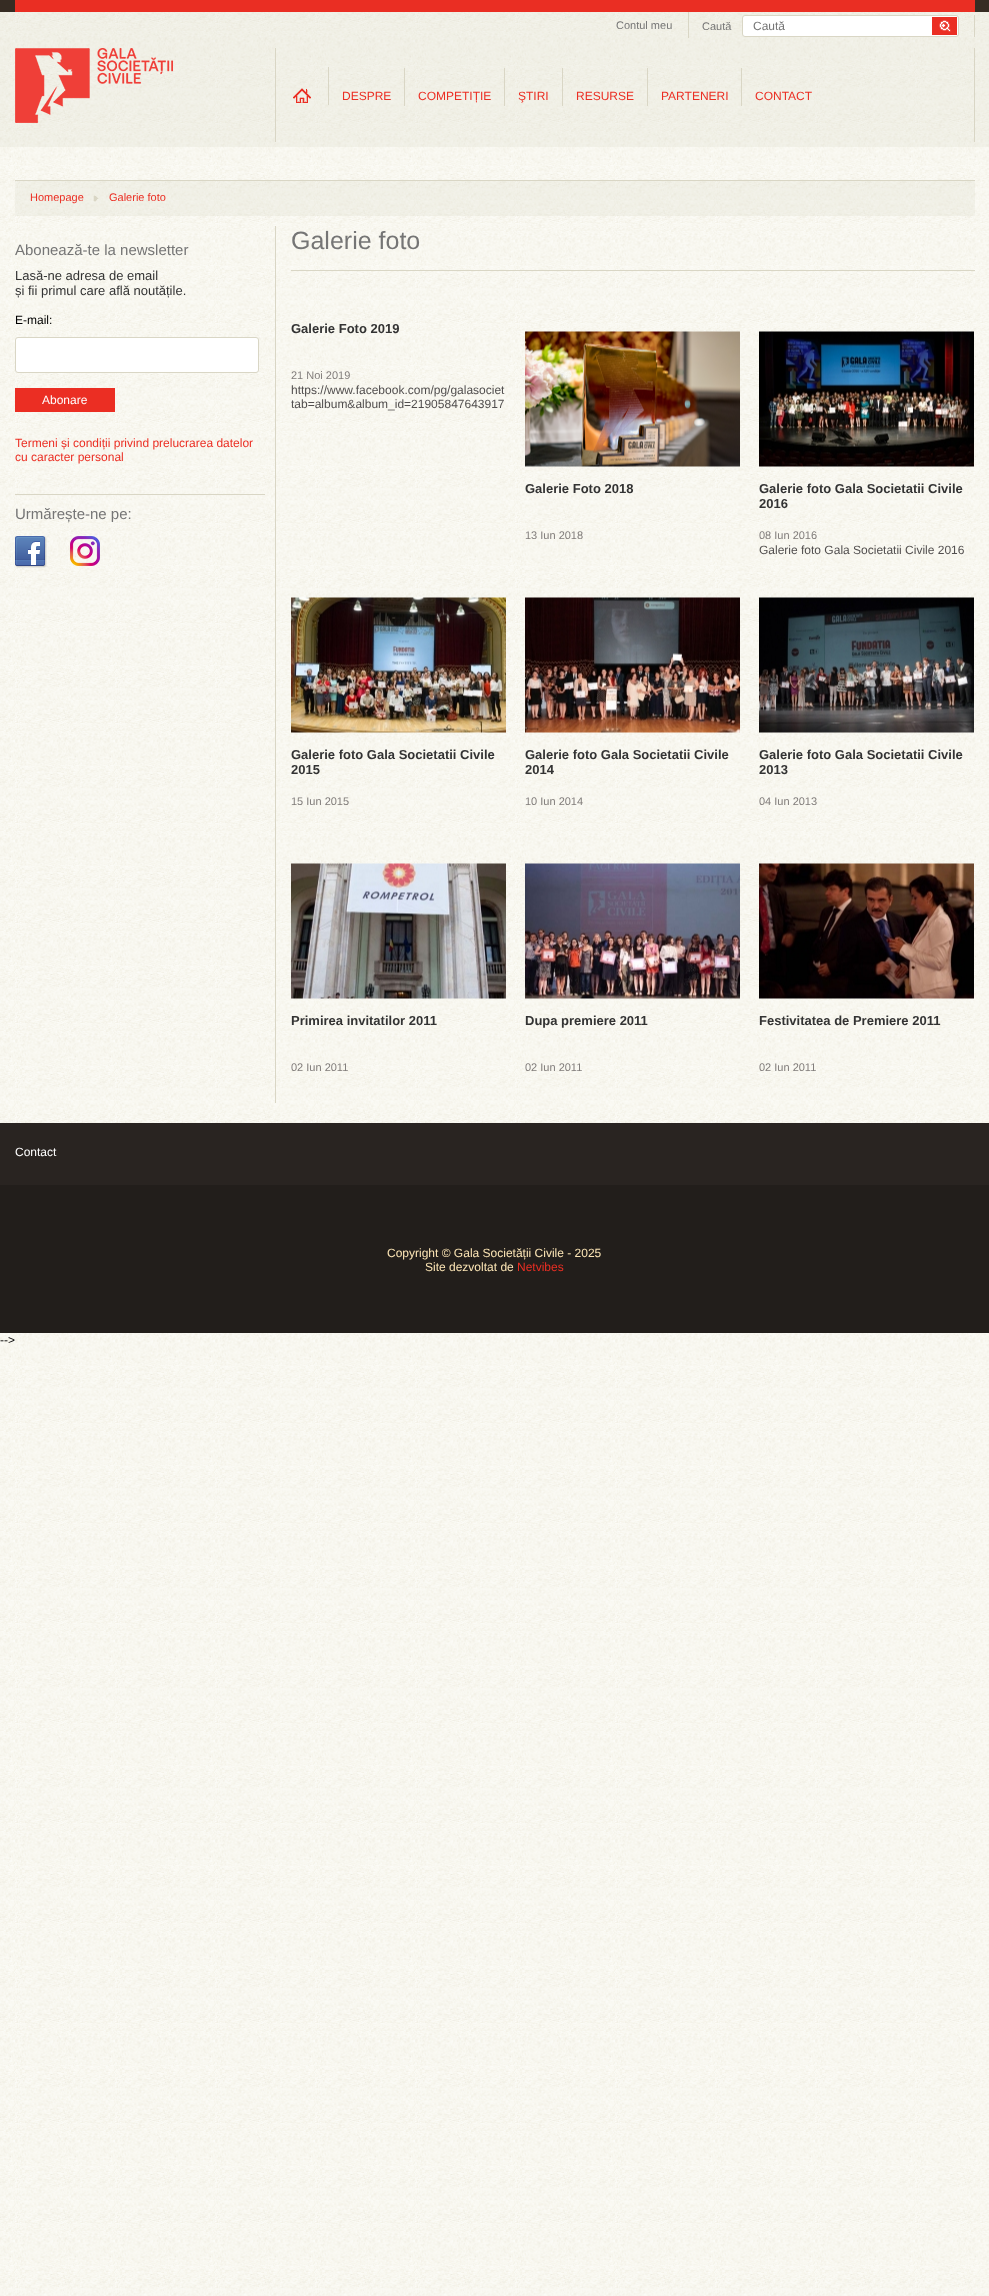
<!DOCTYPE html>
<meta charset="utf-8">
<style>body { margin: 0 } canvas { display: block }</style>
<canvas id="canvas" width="989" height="2296"></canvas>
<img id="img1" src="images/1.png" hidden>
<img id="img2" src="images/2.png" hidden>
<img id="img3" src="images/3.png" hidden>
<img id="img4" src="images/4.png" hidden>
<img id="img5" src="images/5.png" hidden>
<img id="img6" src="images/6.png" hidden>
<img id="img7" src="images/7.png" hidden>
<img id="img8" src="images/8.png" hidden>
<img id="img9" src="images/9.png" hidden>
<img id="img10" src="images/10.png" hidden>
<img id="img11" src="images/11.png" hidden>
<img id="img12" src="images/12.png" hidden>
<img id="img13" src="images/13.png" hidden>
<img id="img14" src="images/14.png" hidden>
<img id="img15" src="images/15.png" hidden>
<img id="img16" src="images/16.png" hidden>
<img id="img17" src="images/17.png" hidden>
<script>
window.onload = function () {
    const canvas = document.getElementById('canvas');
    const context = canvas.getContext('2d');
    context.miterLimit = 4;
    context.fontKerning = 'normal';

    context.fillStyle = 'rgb(255, 255, 255)';
    context.fillRect(0, 0, 989, 2296);
    context.drawImage(document.getElementById('img1'), 0, 12, 989, 2284);
    context.drawImage(document.getElementById('img2'), 0, 0, 989, 147);
    context.fillStyle = 'rgb(234, 46, 35)';
    context.fillRect(15, 0, 960, 12);
    context.fillStyle = 'rgb(217, 214, 197)';
    context.fillRect(688, 12, 1, 26);
    context.fillRect(974, 15, 1, 22);
    context.fillStyle = 'rgb(255, 255, 255)';
    context.beginPath();
    context.roundRect(742.5, 15.5, 216, 21, 2.5);
    context.fill();
    context.strokeStyle = 'rgb(217, 214, 197)';
    context.stroke();
    context.drawImage(document.getElementById('img3'), 932, 17, 25, 18);
    context.fillStyle = 'rgb(217, 214, 197)';
    context.fillRect(275, 48, 1, 94);
    context.drawImage(document.getElementById('img4'), 15, 48, 158, 75);
    context.fillRect(974, 48, 1, 94);
    context.fillRect(328, 67, 1, 38);
    context.drawImage(document.getElementById('img5'), 293, 88, 18, 15);
    context.fillRect(404, 68, 1, 38);
    context.fillRect(504, 68, 1, 38);
    context.fillRect(562, 68, 1, 38);
    context.fillRect(647, 68, 1, 38);
    context.fillRect(741, 68, 1, 38);
    context.fillStyle = 'rgba(216, 216, 199, 0.23)';
    context.fillRect(15, 181, 960, 35);
    context.fillStyle = 'rgb(217, 214, 197)';
    context.fillRect(15, 180, 960, 1);
    context.drawImage(document.getElementById('img6'), 93, 195, 6, 7);
    context.fillStyle = 'rgb(255, 255, 255)';
    context.beginPath();
    context.roundRect(15.5, 337.5, 243, 35, 2.5);
    context.fill();
    context.stroke();
    context.fillStyle = 'rgb(235, 46, 35)';
    context.fillRect(15, 388, 100, 24);
    context.fillStyle = 'rgb(217, 214, 197)';
    context.fillRect(15, 494, 250, 1);
    context.drawImage(document.getElementById('img7'), 15, 536, 32, 32);
    context.drawImage(document.getElementById('img8'), 70, 536, 30, 30);
    context.fillRect(275, 226, 1, 877);
    context.fillRect(291, 270, 684, 1);
    context.drawImage(document.getElementById('img9'), 525, 331, 215, 136);
    context.drawImage(document.getElementById('img10'), 759, 331, 215, 136);
    context.drawImage(document.getElementById('img11'), 291, 597, 215, 136);
    context.drawImage(document.getElementById('img12'), 525, 597, 215, 136);
    context.drawImage(document.getElementById('img13'), 759, 597, 215, 136);
    context.drawImage(document.getElementById('img14'), 291, 863, 215, 136);
    context.drawImage(document.getElementById('img15'), 525, 863, 215, 136);
    context.drawImage(document.getElementById('img16'), 759, 863, 215, 136);
    context.drawImage(document.getElementById('img17'), 0, 1123, 989, 210);
    context.font = '11px Liberation Sans';
    context.fillStyle = 'rgb(117, 117, 117)';
    context.fillText('Contul meu', 616, 29);
    context.fillText('Caută', 702, 30);
    context.font = '12px Liberation Sans';
    context.fillText('Caută', 753, 30);
    context.fillStyle = 'rgb(235, 46, 35)';
    context.fillText('DESPRE', 342, 100);
    context.fillText('COMPETIȚIE', 418, 100);
    context.fillText('ŞTIRI', 518, 100);
    context.fillText('RESURSE', 576, 100);
    context.fillText('PARTENERI', 661, 100);
    context.fillText('CONTACT', 755, 100);
    context.font = '11px Liberation Sans';
    context.fillText('Homepage', 30, 201);
    context.fillText('Galerie foto', 109, 201);
    context.font = '15px Liberation Sans';
    context.fillStyle = 'rgb(117, 117, 117)';
    context.fillText('Abonează-te la newsletter', 15, 255);
    context.font = '13px Liberation Sans';
    context.fillStyle = 'rgb(51, 51, 51)';
    context.fillText('Lasă-ne adresa de email', 15, 280);
    context.fillText('și fii primul care află noutățile.', 15, 295);
    context.font = '12px Liberation Sans';
    context.fillStyle = 'rgb(0, 0, 0)';
    context.fillText('E-mail:', 15, 324);
    context.fillStyle = 'rgb(255, 255, 255)';
    context.fillText('Abonare', 42, 404);
    context.fillStyle = 'rgb(235, 46, 35)';
    context.fillText('Termeni și condiții privind prelucrarea datelor', 15, 447);
    context.fillText('cu caracter personal', 15, 461);
    context.font = '15px Liberation Sans';
    context.fillStyle = 'rgb(117, 117, 117)';
    context.fillText('Urmărește-ne pe:', 15, 519);
    context.font = '25px Liberation Sans';
    context.fillText('Galerie foto', 291, 249);
    context.font = 'bold 13px Liberation Sans';
    context.fillStyle = 'rgb(51, 51, 51)';
    context.fillText('Galerie Foto 2019', 291, 333);
    context.font = '11px Liberation Sans';
    context.fillStyle = 'rgb(128, 124, 122)';
    context.fillText('21 Noi 2019', 291, 379);
    context.font = '12px Liberation Sans';
    context.fillStyle = 'rgb(81, 78, 78)';
    context.fillText('https://www.facebook.com/pg/galasociet', 291, 394);
    context.fillText('tab=album&album_id=21905847643917', 291, 408);
    context.font = 'bold 13px Liberation Sans';
    context.fillStyle = 'rgb(51, 51, 51)';
    context.fillText('Galerie Foto 2018', 525, 493);
    context.font = '11px Liberation Sans';
    context.fillStyle = 'rgb(128, 124, 122)';
    context.fillText('13 Iun 2018', 525, 539);
    context.font = 'bold 13px Liberation Sans';
    context.fillStyle = 'rgb(51, 51, 51)';
    context.fillText('Galerie foto Gala Societatii Civile', 759, 493);
    context.fillText('2016', 759, 508);
    context.font = '11px Liberation Sans';
    context.fillStyle = 'rgb(128, 124, 122)';
    context.fillText('08 Iun 2016', 759, 539);
    context.font = '12px Liberation Sans';
    context.fillStyle = 'rgb(81, 78, 78)';
    context.fillText('Galerie foto Gala Societatii Civile 2016', 759, 554);
    context.font = 'bold 13px Liberation Sans';
    context.fillStyle = 'rgb(51, 51, 51)';
    context.fillText('Galerie foto Gala Societatii Civile', 291, 759);
    context.fillText('2015', 291, 774);
    context.font = '11px Liberation Sans';
    context.fillStyle = 'rgb(128, 124, 122)';
    context.fillText('15 Iun 2015', 291, 805);
    context.font = 'bold 13px Liberation Sans';
    context.fillStyle = 'rgb(51, 51, 51)';
    context.fillText('Galerie foto Gala Societatii Civile', 525, 759);
    context.fillText('2014', 525, 774);
    context.font = '11px Liberation Sans';
    context.fillStyle = 'rgb(128, 124, 122)';
    context.fillText('10 Iun 2014', 525, 805);
    context.font = 'bold 13px Liberation Sans';
    context.fillStyle = 'rgb(51, 51, 51)';
    context.fillText('Galerie foto Gala Societatii Civile', 759, 759);
    context.fillText('2013', 759, 774);
    context.font = '11px Liberation Sans';
    context.fillStyle = 'rgb(128, 124, 122)';
    context.fillText('04 Iun 2013', 759, 805);
    context.font = 'bold 13px Liberation Sans';
    context.fillStyle = 'rgb(51, 51, 51)';
    context.fillText('Primirea invitatilor 2011', 291, 1025);
    context.font = '11px Liberation Sans';
    context.fillStyle = 'rgb(128, 124, 122)';
    context.fillText('02 Iun 2011', 291, 1071);
    context.font = 'bold 13px Liberation Sans';
    context.fillStyle = 'rgb(51, 51, 51)';
    context.fillText('Dupa premiere 2011', 525, 1025);
    context.font = '11px Liberation Sans';
    context.fillStyle = 'rgb(128, 124, 122)';
    context.fillText('02 Iun 2011', 525, 1071);
    context.font = 'bold 13px Liberation Sans';
    context.fillStyle = 'rgb(51, 51, 51)';
    context.fillText('Festivitatea de Premiere 2011', 759, 1025);
    context.font = '11px Liberation Sans';
    context.fillStyle = 'rgb(128, 124, 122)';
    context.fillText('02 Iun 2011', 759, 1071);
    context.font = '12px Liberation Sans';
    context.fillStyle = 'rgb(255, 255, 255)';
    context.fillText('Contact', 15, 1156);
    context.fillStyle = 'rgb(252, 229, 181)';
    context.fillText('Copyright © Gala Societății Civile - 2025', 387, 1257);
    context.fillText('Site dezvoltat de', 425, 1271);
    context.fillStyle = 'rgb(235, 46, 35)';
    context.fillText('Netvibes', 517, 1271);
    context.fillStyle = 'rgb(0, 0, 0)';
    context.fillText('-->', 0, 1344);
};
</script>
